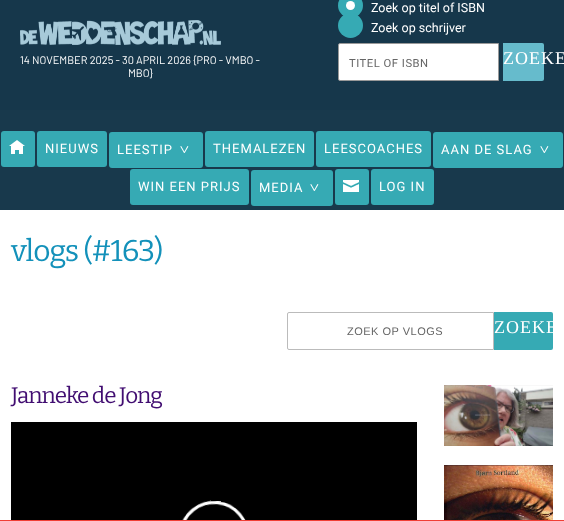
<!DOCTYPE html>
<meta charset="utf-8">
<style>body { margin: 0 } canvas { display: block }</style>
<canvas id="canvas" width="564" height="521"></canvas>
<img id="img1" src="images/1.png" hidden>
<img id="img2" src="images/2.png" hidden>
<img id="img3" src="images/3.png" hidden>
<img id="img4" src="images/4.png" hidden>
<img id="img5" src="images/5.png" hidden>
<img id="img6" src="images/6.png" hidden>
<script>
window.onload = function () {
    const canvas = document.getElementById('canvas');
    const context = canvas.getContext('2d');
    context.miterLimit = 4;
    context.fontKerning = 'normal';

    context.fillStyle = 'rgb(255, 255, 255)';
    context.fillRect(0, 0, 564, 521);
    context.fillStyle = 'rgb(22, 55, 75)';
    context.fillRect(0, 0, 564, 110);
    context.drawImage(document.getElementById('img1'), 20, 20, 201, 25);
    context.fillStyle = 'rgb(54, 170, 180)';
    context.beginPath();
    context.arc(350.5, 5.5, 12.5, 0, 2 * Math.PI);
    context.fill();
    context.fillStyle = 'rgb(255, 255, 255)';
    context.beginPath();
    context.arc(350.5, 5.5, 4.5, 0, 2 * Math.PI);
    context.fill();
    context.fillStyle = 'rgb(54, 170, 180)';
    context.beginPath();
    context.arc(350.5, 25.5, 12.5, 0, 2 * Math.PI);
    context.fill();
    context.fillStyle = 'rgb(255, 255, 255)';
    context.beginPath();
    context.roundRect(338.5, 43.5, 160, 37, [1.5, 0, 0, 1.5]);
    context.fill();
    context.strokeStyle = 'rgb(153, 153, 153)';
    context.stroke();
    context.fillStyle = 'rgb(102, 187, 204)';
    context.beginPath();
    context.roundRect(503, 43, 41, 38, [0, 2, 2, 0]);
    context.fill();
    context.fillStyle = 'rgb(24, 57, 76)';
    context.fillRect(0, 110, 564, 100);
    context.fillStyle = 'rgb(54, 170, 180)';
    context.beginPath();
    context.roundRect(1, 131, 34, 36, 3);
    context.fill();
    context.drawImage(document.getElementById('img2'), 9, 140, 16, 14);
    context.beginPath();
    context.roundRect(37, 131, 70, 36, 3);
    context.fill();
    context.beginPath();
    context.roundRect(109, 132, 94, 36, 3);
    context.fill();
    context.beginPath();
    context.roundRect(205, 131, 109, 36, 3);
    context.fill();
    context.beginPath();
    context.roundRect(316, 131, 115, 36, 3);
    context.fill();
    context.beginPath();
    context.roundRect(433, 132, 130, 36, 3);
    context.fill();
    context.beginPath();
    context.roundRect(130, 169, 119, 36, 3);
    context.fill();
    context.beginPath();
    context.roundRect(251, 170, 82, 36, 3);
    context.fill();
    context.beginPath();
    context.roundRect(335, 169, 34, 36, 3);
    context.fill();
    context.drawImage(document.getElementById('img3'), 343, 180, 16, 12);
    context.beginPath();
    context.roundRect(371, 169, 63, 36, 3);
    context.fill();
    context.beginPath();
    context.roundRect(287.5, 312.5, 206, 37, [1.5, 0, 0, 1.5]);
    context.strokeStyle = 'rgb(187, 187, 187)';
    context.stroke();
    context.beginPath();
    context.roundRect(494, 312, 59, 38, [0, 2, 2, 0]);
    context.fill();
    context.drawImage(document.getElementById('img4'), 11, 422, 406, 98);
    context.drawImage(document.getElementById('img5'), 444, 385, 109, 61);
    context.drawImage(document.getElementById('img6'), 444, 465, 109, 55);
    context.fillStyle = 'rgb(240, 63, 53)';
    context.fillRect(0, 520, 564, 1);
    context.font = '11px Barlow';
    context.fillStyle = 'rgb(255, 255, 255)';
    context.fillText('14 NOVEMBER 2025 - 30 APRIL 2026 {PRO - VMBO -', 20, 64);
    context.fillText('MBO}', 128, 77);
    context.font = '12.5px Roboto';
    context.fillText('Zoek op titel of ISBN', 371, 12);
    context.fillText('Zoek op schrijver', 371, 32);
    context.letterSpacing = '0.5px';
    context.font = '11.25px Roboto';
    context.fillStyle = 'rgb(102, 102, 102)';
    context.fillText('TITEL OF ISBN', 349, 67);
    context.letterSpacing = '1px';
    context.font = '18px Liberation Serif';
    context.fillStyle = 'rgb(255, 255, 255)';
    context.fillText('ZOEKE', 503, 64);
    context.font = '13px Roboto';
    context.fillText('NIEUWS', 45, 153);
    context.fillText('LEESTIP', 117, 154);
    context.font = '16px Quicksand';
    context.save();
    context.translate(179, 145);
    context.rotate(90 * Math.PI / 180);
    context.fillText('>', 0, 0);
    context.restore();
    context.font = '13px Roboto';
    context.fillText('THEMALEZEN', 213, 153);
    context.fillText('LEESCOACHES', 324, 153);
    context.fillText('AAN DE SLAG', 441, 154);
    context.font = '16px Quicksand';
    context.save();
    context.translate(539, 145);
    context.rotate(90 * Math.PI / 180);
    context.fillText('>', 0, 0);
    context.restore();
    context.font = '13px Roboto';
    context.fillText('WIN EEN PRIJS', 138, 191);
    context.fillText('MEDIA', 259, 192);
    context.font = '16px Quicksand';
    context.save();
    context.translate(309, 183);
    context.rotate(90 * Math.PI / 180);
    context.fillText('>', 0, 0);
    context.restore();
    context.font = '13px Roboto';
    context.fillText('LOG IN', 379, 191);
    context.letterSpacing = '-1px';
    context.font = '30px Bitter';
    context.fillStyle = 'rgb(19, 145, 186)';
    context.fillText('vlogs (#163)', 11, 261);
    context.letterSpacing = '0.5px';
    context.font = '11px Liberation Sans';
    context.fillStyle = 'rgb(102, 102, 102)';
    context.fillText('ZOEK OP VLOGS', 347, 335);
    context.letterSpacing = '1px';
    context.font = '18px Liberation Serif';
    context.fillStyle = 'rgb(255, 255, 255)';
    context.fillText('ZOEKE', 494, 333);
    context.letterSpacing = '-1px';
    context.font = '22.5px Bitter';
    context.fillStyle = 'rgb(65, 13, 113)';
    context.fillText('Janneke de Jong', 11, 403);
};
</script>
